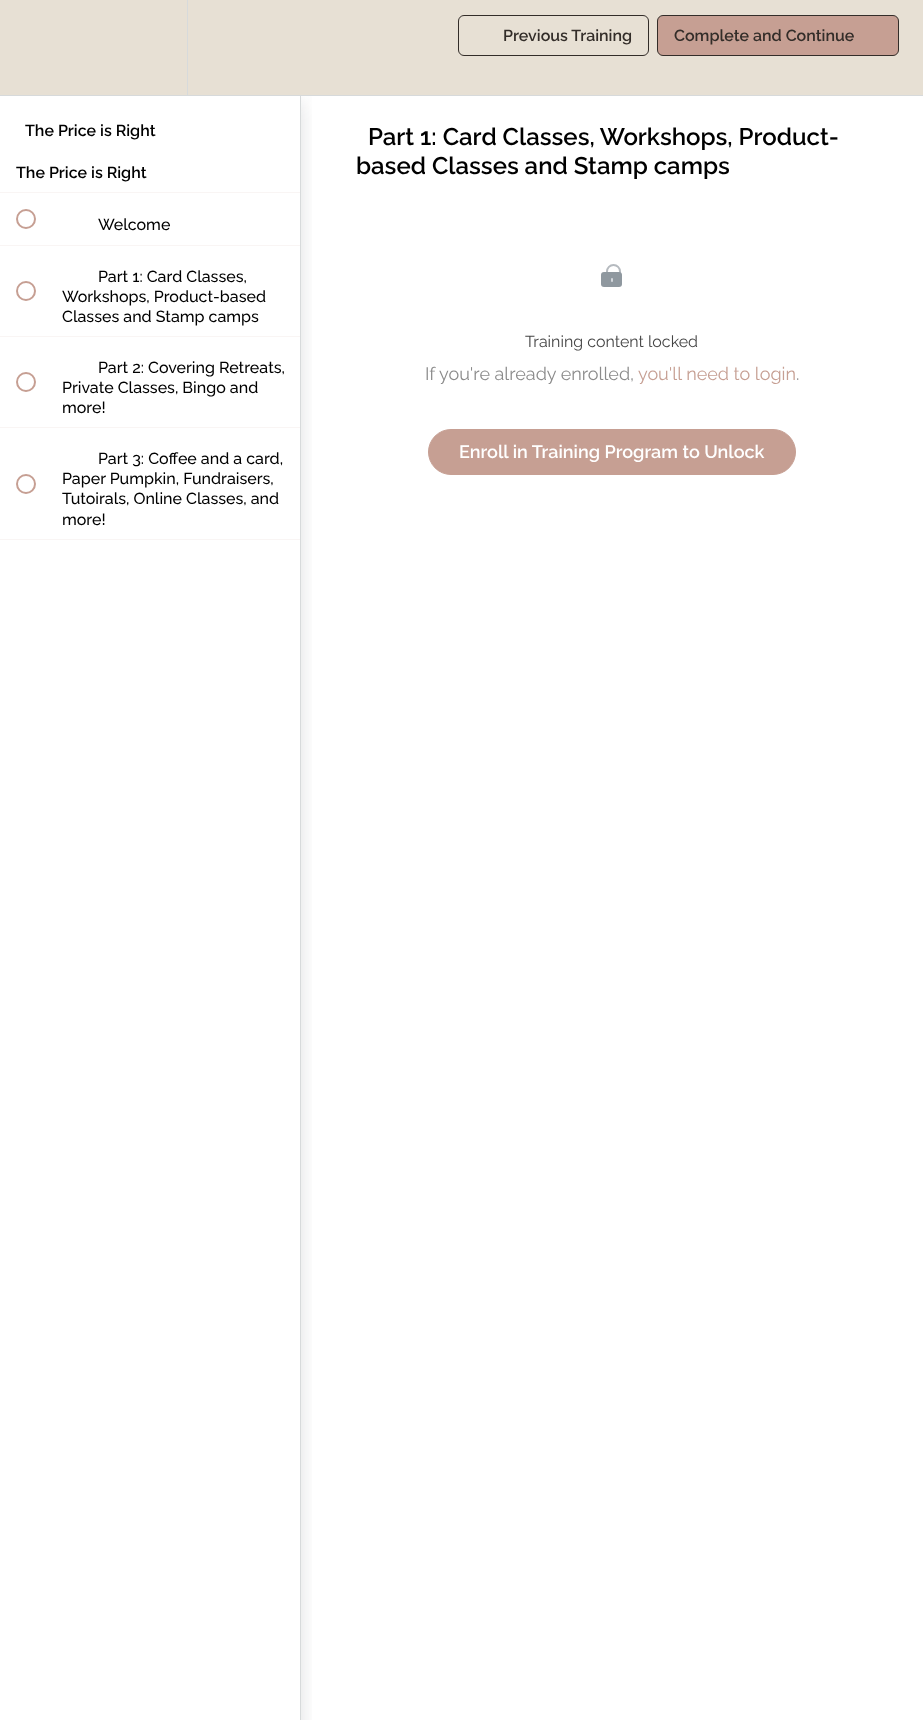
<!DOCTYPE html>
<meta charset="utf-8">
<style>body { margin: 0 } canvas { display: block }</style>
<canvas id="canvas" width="923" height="1720"></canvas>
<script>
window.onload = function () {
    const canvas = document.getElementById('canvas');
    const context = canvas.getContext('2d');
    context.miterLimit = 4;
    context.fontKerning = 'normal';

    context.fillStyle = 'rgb(255, 255, 255)';
    context.fillRect(0, 0, 923, 1720);
    context.save();
    context.beginPath();
    context.rect(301, 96, 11, 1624);
    context.clip();
    context.fillStyle = 'rgba(32, 39, 45, 0.15)';
    context.filter = 'blur(10px)';
    context.beginPath();
    context.rect(0, 102, 301, 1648);
    context.fill();
    context.filter = 'none';
    context.restore();
    context.fillStyle = 'rgb(231, 224, 212)';
    context.fillRect(0, 0, 923, 95);
    context.fillStyle = 'rgb(215, 218, 219)';
    context.fillRect(0, 95, 923, 1);
    context.fillRect(187, 0, 1, 95);
    context.beginPath();
    context.roundRect(458.5, 15.5, 190, 40, 5.5);
    context.strokeStyle = 'rgb(51, 45, 41)';
    context.stroke();
    context.fillStyle = 'rgb(198, 159, 147)';
    context.beginPath();
    context.roundRect(657.5, 15.5, 241, 40, 5.5);
    context.fill();
    context.stroke();
    context.fillStyle = 'rgb(215, 218, 219)';
    context.fillRect(300, 96, 1, 1624);
    context.fillStyle = 'rgb(249, 245, 244)';
    context.fillRect(0, 192, 300, 1);
    context.fillRect(0, 245, 300, 1);
    context.beginPath();
    context.arc(26, 219, 9, 0, 2 * Math.PI);
    context.strokeStyle = 'rgb(198, 159, 147)';
    context.lineWidth = 2;
    context.stroke();
    context.fillRect(0, 336, 300, 1);
    context.beginPath();
    context.arc(26, 291, 9, 0, 2 * Math.PI);
    context.stroke();
    context.fillRect(0, 427, 300, 1);
    context.beginPath();
    context.arc(26, 382, 9, 0, 2 * Math.PI);
    context.stroke();
    context.fillRect(0, 539, 300, 1);
    context.beginPath();
    context.arc(26, 484, 9, 0, 2 * Math.PI);
    context.stroke();
    context.beginPath();
    context.roundRect(607, 265, 13, 20, 6.5);
    context.strokeStyle = 'rgb(181, 186, 191)';
    context.stroke();
    context.fillStyle = 'rgb(143, 152, 159)';
    context.beginPath();
    context.roundRect(601, 272, 21, 15, 3);
    context.fill();
    context.fillStyle = 'rgb(211, 215, 220)';
    context.beginPath();
    context.roundRect(611, 278, 2, 4, 1);
    context.fill();
    context.fillStyle = 'rgb(198, 159, 147)';
    context.beginPath();
    context.roundRect(428.5, 429.5, 367, 45, 22.5);
    context.fill();
    context.strokeStyle = 'rgb(198, 159, 147)';
    context.lineWidth = 1;
    context.stroke();
    context.font = '600 16px Raleway';
    context.fillStyle = 'rgb(51, 45, 41)';
    context.fillText('Previous Training', 503, 41);
    context.fillText('Complete and Continue', 674, 41);
    context.fillStyle = 'rgb(0, 0, 0)';
    context.fillText('The Price is Right', 25, 136);
    context.fillText('The Price is Right', 16, 178);
    context.font = '500 16px Raleway';
    context.fillText('Welcome', 98, 230);
    context.fillText('Part 1: Card Classes,', 98, 282);
    context.fillText('Workshops, Product-based', 62, 302);
    context.fillText('Classes and Stamp camps', 62, 322);
    context.fillText('Part 2: Covering Retreats,', 98, 373);
    context.fillText('Private Classes, Bingo and', 62, 393);
    context.fillText('more!', 62, 413);
    context.fillText('Part 3: Coffee and a card,', 98, 464);
    context.fillText('Paper Pumpkin, Fundraisers,', 62, 484);
    context.fillText('Tutoirals, Online Classes, and', 62, 504);
    context.fillText('more!', 62, 525);
    context.font = '600 24px Raleway';
    context.fillText('Part 1: Card Classes, Workshops, Product-', 368, 145);
    context.fillText('based Classes and Stamp camps', 356, 174);
    context.font = '16px Raleway';
    context.fillStyle = 'rgb(69, 69, 69)';
    context.fillText('Training content locked', 525, 347);
    context.font = '18px Raleway';
    context.fillStyle = 'rgb(139, 139, 139)';
    context.fillText('If you\'re already enrolled,', 425, 380);
    context.fillStyle = 'rgb(198, 159, 147)';
    context.fillText('you\'ll need to login', 638, 380);
    context.fillStyle = 'rgb(139, 139, 139)';
    context.fillText('.', 796, 380);
    context.font = '600 18px Raleway';
    context.fillStyle = 'rgb(255, 255, 255)';
    context.fillText('Enroll in Training Program to Unlock', 459, 458);
};
</script>
